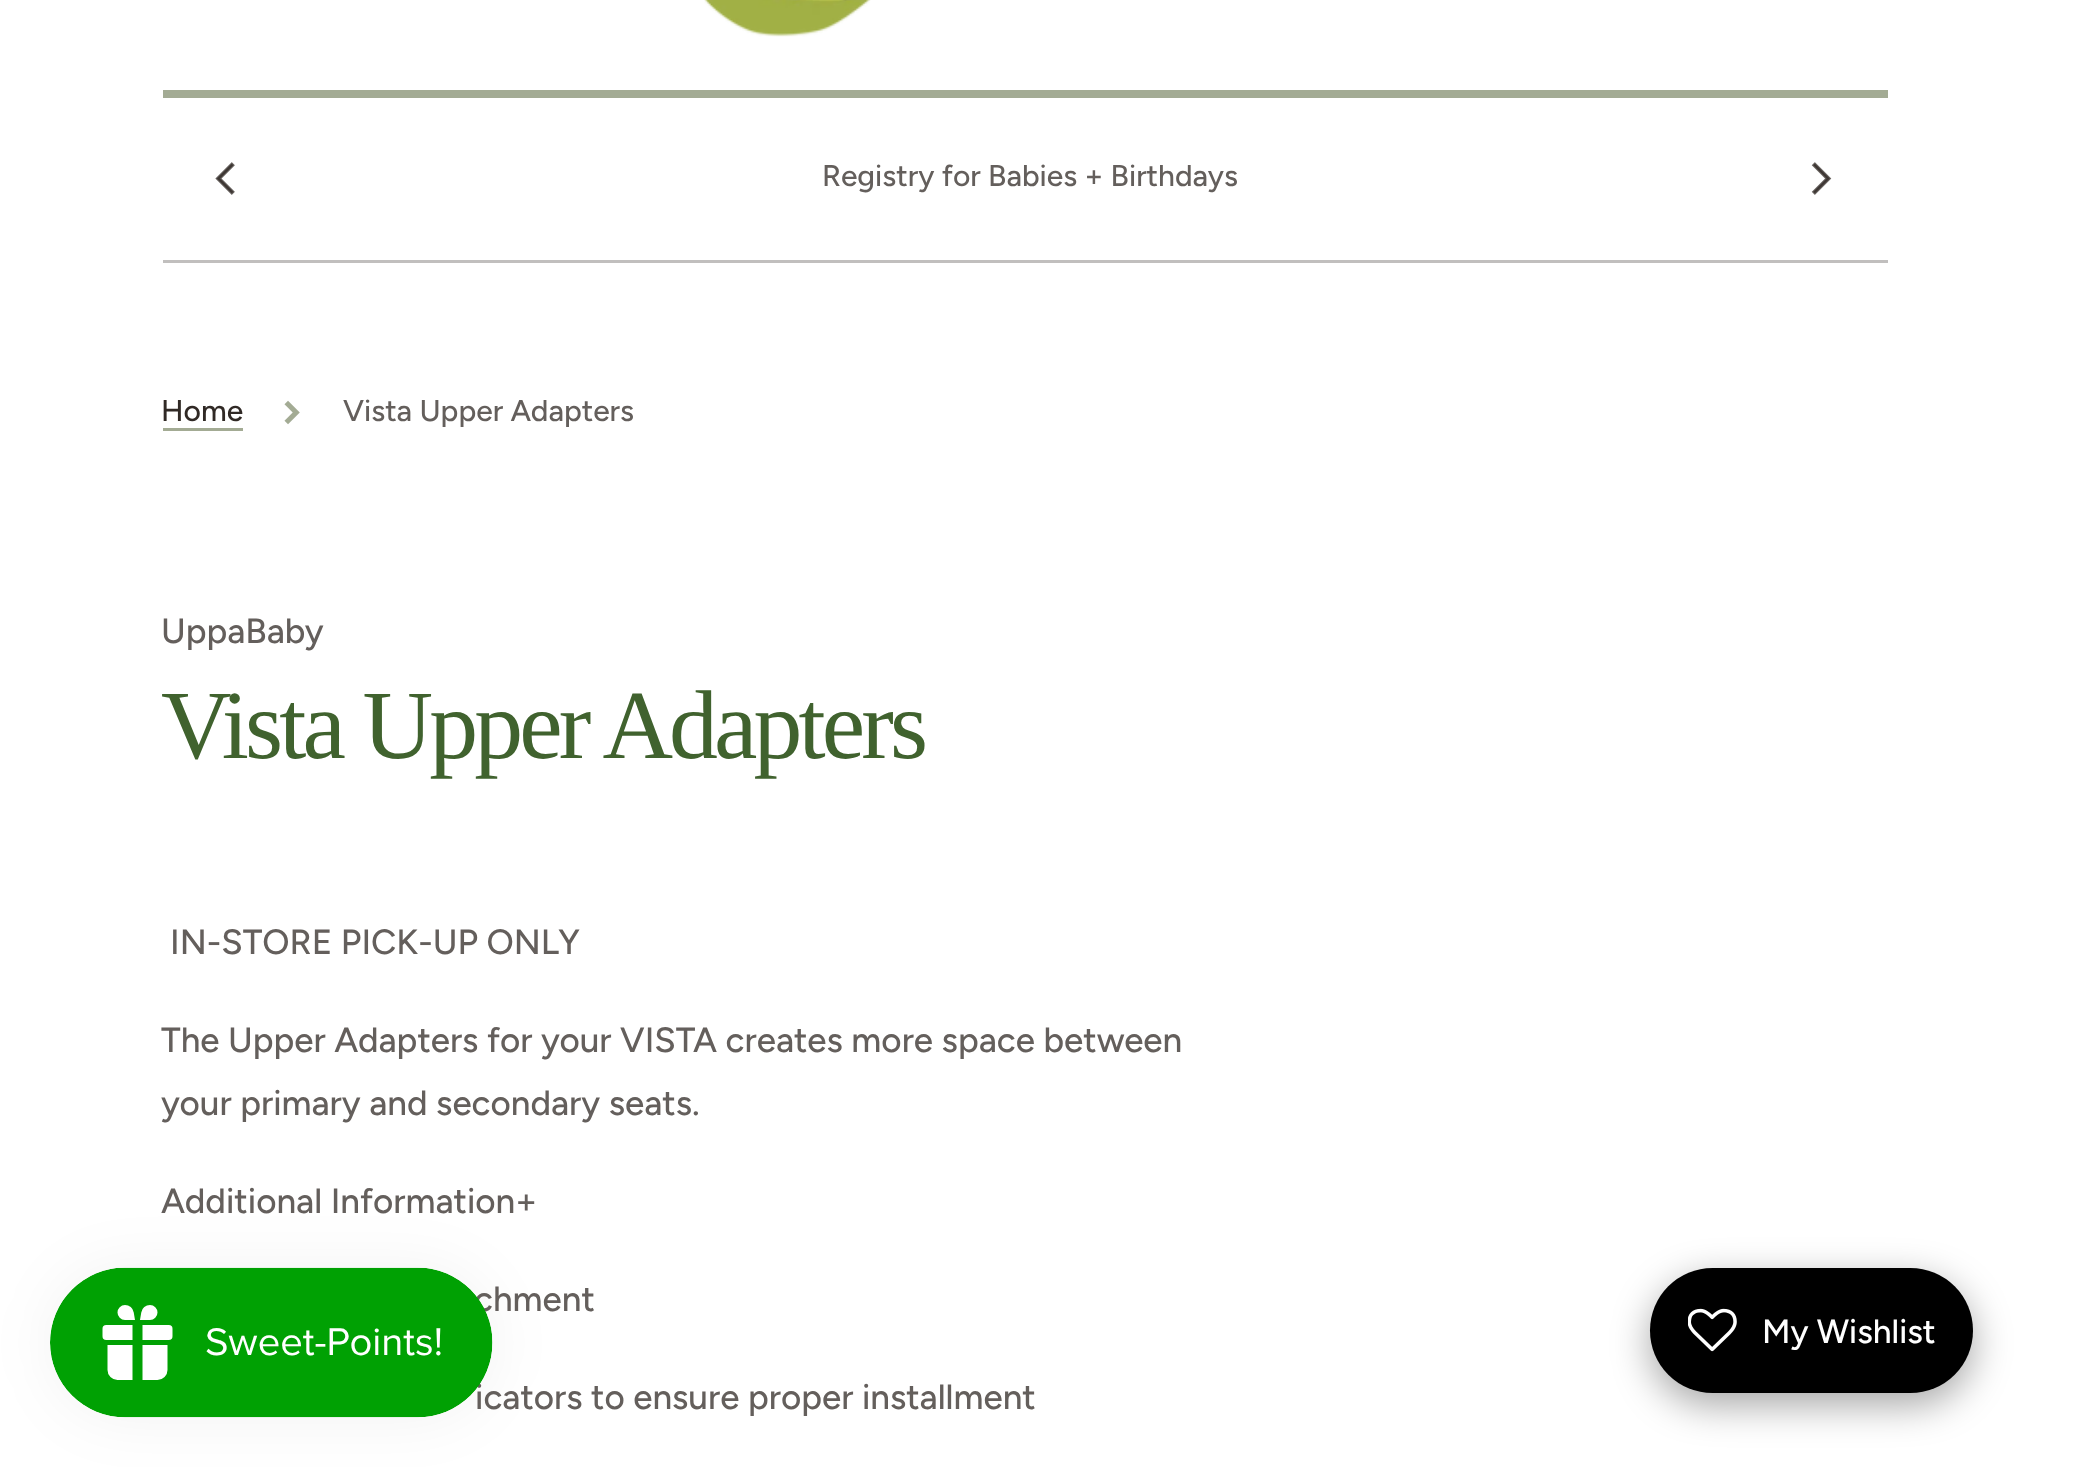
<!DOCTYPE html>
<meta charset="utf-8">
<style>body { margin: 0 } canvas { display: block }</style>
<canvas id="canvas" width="2085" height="1467"></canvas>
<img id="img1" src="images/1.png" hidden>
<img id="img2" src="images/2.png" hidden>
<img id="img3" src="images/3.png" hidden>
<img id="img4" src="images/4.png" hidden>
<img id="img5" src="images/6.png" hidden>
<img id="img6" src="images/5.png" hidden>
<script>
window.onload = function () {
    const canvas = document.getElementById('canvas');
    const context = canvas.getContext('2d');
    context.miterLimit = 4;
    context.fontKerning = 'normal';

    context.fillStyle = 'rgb(255, 255, 255)';
    context.fillRect(0, 0, 2085, 1467);
    context.drawImage(document.getElementById('img1'), 704, 0, 167, 37);
    context.fillStyle = 'rgb(163, 171, 148)';
    context.fillRect(163, 90, 1725, 8);
    context.fillStyle = 'rgb(193, 191, 190)';
    context.fillRect(163, 260, 1725, 3);
    context.drawImage(document.getElementById('img2'), 215, 162, 20, 33);
    context.drawImage(document.getElementById('img3'), 1811, 162, 21, 33);
    context.fillStyle = 'rgb(163, 171, 148)';
    context.fillRect(163, 428, 80, 3);
    context.drawImage(document.getElementById('img4'), 284, 400, 16, 25);
    context.fillStyle = 'rgba(0, 0, 0, 0.05)';
    context.filter = 'blur(31px)';
    context.beginPath();
    context.roundRect(50, 1268, 443, 150, 75);
    context.fill();
    context.filter = 'none';
    context.fillStyle = 'rgba(0, 0, 0, 0.35)';
    context.filter = 'blur(19px)';
    context.beginPath();
    context.roundRect(1650, 1280, 323, 125, 62.5);
    context.fill();
    context.filter = 'none';
    context.fillStyle = 'rgb(0, 0, 0)';
    context.beginPath();
    context.roundRect(1650, 1268, 323, 125, 62.5);
    context.fill();
    context.drawImage(document.getElementById('img5'), 1688, 1308, 49, 44);
    context.font = '500 30px Figtree';
    context.fillStyle = 'rgb(100, 95, 92)';
    context.fillText('Registry for Babies + Birthdays', 822, 186);
    context.fillStyle = 'rgb(48, 41, 37)';
    context.fillText('Home', 161, 421);
    context.fillStyle = 'rgb(100, 95, 92)';
    context.fillText('Vista Upper Adapters', 343, 421);
    context.font = '500 35px Figtree';
    context.fillText('UppaBaby', 161, 643);
    context.letterSpacing = '-3.9px';
    context.font = '97.75px Liberation Serif';
    context.fillStyle = 'rgb(64, 98, 46)';
    context.fillText('Vista Upper Adapters', 161, 758);
    context.letterSpacing = '0px';
    context.font = '500 35px Figtree';
    context.fillStyle = 'rgb(100, 95, 92)';
    context.fillText('IN-STORE PICK-UP ONLY', 170, 954);
    context.fillText('The Upper Adapters for your VISTA creates more space between', 161, 1052);
    context.fillText('your primary and secondary seats.', 161, 1115);
    context.fillText('Additional Information+', 161, 1213);
    context.fillText('chment', 474, 1311);
    context.fillText('icators to ensure proper installment', 475, 1409);
    context.drawImage(document.getElementById('img6'), 50, 1267, 443, 151);
    context.font = '500 33.5px Figtree';
    context.fillStyle = 'rgb(255, 255, 255)';
    context.fillText('My Wishlist', 1762, 1343);
};
</script>
